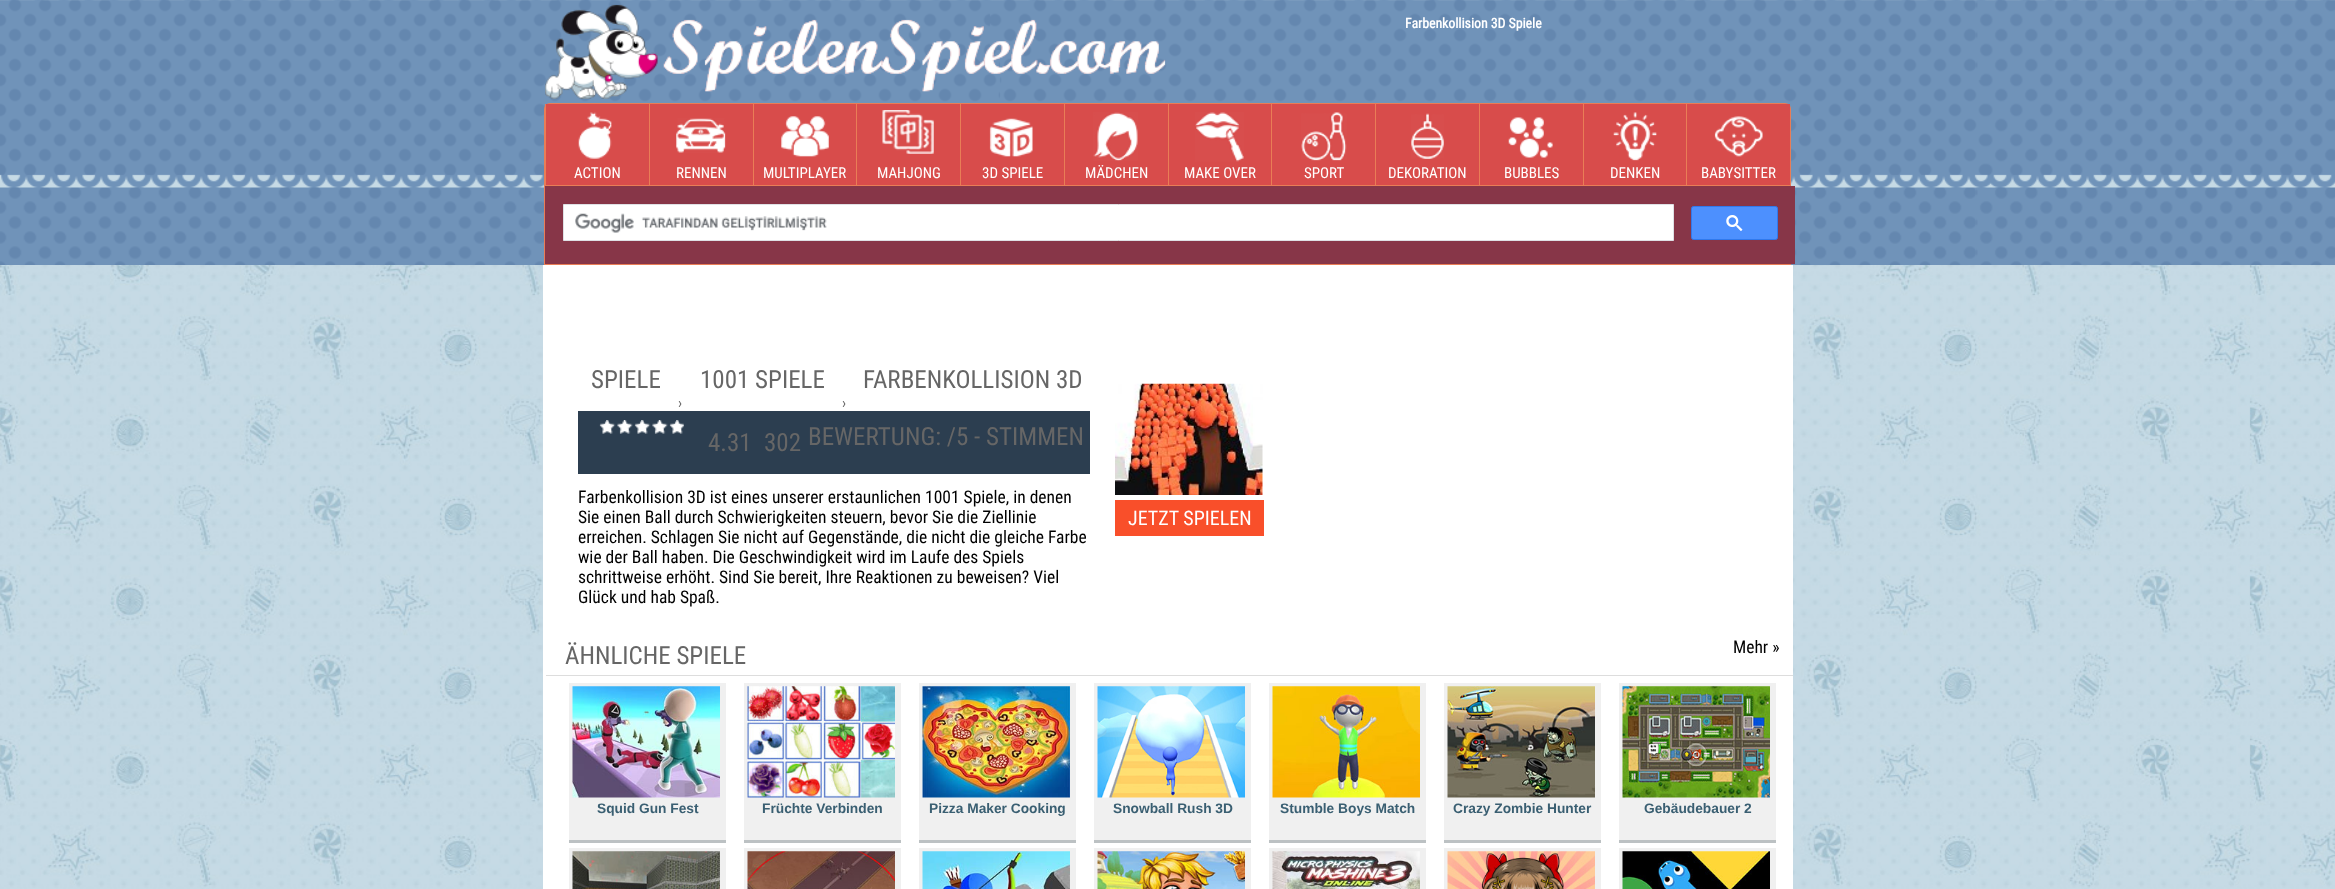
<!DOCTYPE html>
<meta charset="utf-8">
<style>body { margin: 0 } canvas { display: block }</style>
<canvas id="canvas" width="2335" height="889"></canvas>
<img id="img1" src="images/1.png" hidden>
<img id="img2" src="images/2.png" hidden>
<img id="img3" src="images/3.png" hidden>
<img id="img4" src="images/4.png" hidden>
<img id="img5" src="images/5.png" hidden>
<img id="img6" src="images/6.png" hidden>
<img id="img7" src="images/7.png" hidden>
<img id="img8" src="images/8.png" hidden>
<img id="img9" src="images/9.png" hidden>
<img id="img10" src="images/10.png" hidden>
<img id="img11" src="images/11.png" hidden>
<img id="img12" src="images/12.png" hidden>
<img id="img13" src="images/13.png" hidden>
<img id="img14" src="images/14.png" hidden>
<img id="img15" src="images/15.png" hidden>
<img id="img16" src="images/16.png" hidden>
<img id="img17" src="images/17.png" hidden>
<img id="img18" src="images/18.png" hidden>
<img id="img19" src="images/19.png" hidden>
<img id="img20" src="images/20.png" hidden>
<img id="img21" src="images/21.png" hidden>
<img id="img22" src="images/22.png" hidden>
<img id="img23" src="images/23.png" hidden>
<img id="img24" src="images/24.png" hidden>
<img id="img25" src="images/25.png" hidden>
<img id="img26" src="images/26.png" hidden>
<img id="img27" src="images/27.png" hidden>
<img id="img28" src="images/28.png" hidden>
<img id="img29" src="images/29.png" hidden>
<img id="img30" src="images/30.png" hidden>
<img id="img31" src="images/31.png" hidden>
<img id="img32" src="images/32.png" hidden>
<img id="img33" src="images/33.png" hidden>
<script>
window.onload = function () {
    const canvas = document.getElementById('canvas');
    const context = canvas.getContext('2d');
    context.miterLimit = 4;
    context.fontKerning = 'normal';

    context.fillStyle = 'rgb(198, 218, 229)';
    context.fillRect(0, 0, 2335, 889);
    context.drawImage(document.getElementById('img1'), 0, 0, 2335, 265);
    context.drawImage(document.getElementById('img2'), 545, 4, 621, 95);
    context.fillStyle = 'rgb(233, 125, 86)';
    context.beginPath();
    context.roundRect(544, 103, 1247, 162, [6, 6, 0, 0]);
    context.fill();
    context.fillStyle = 'rgb(216, 76, 75)';
    context.fillRect(546, 104, 103, 81);
    context.fillStyle = 'rgb(233, 125, 86)';
    context.fillRect(545, 104, 1, 2);
    context.drawImage(document.getElementById('img3'), 578, 112, 34, 47);
    context.fillStyle = 'rgb(216, 76, 75)';
    context.fillRect(650, 104, 103, 81);
    context.drawImage(document.getElementById('img4'), 676, 118, 50, 35);
    context.fillRect(754, 104, 102, 81);
    context.drawImage(document.getElementById('img5'), 781, 116, 48, 41);
    context.fillRect(857, 104, 103, 81);
    context.drawImage(document.getElementById('img6'), 882, 110, 52, 44);
    context.fillRect(961, 104, 103, 81);
    context.drawImage(document.getElementById('img7'), 989, 118, 44, 39);
    context.fillRect(1065, 104, 103, 81);
    context.drawImage(document.getElementById('img8'), 1093, 112, 45, 49);
    context.fillRect(1169, 104, 102, 81);
    context.drawImage(document.getElementById('img9'), 1195, 112, 49, 50);
    context.fillRect(1272, 104, 103, 81);
    context.drawImage(document.getElementById('img10'), 1301, 112, 46, 49);
    context.fillRect(1376, 104, 103, 81);
    context.drawImage(document.getElementById('img11'), 1411, 113, 33, 46);
    context.fillRect(1480, 104, 103, 81);
    context.drawImage(document.getElementById('img12'), 1508, 117, 45, 41);
    context.fillRect(1584, 104, 102, 81);
    context.drawImage(document.getElementById('img13'), 1613, 112, 44, 49);
    context.fillRect(1687, 104, 103, 81);
    context.drawImage(document.getElementById('img14'), 1714, 116, 49, 41);
    context.fillStyle = 'rgb(135, 54, 72)';
    context.fillRect(545, 186, 1250, 78);
    context.fillStyle = 'rgb(255, 255, 255)';
    context.beginPath();
    context.rect(563.5, 204.5, 1110, 36);
    context.fill();
    context.strokeStyle = 'rgb(223, 225, 229)';
    context.stroke();
    context.drawImage(document.getElementById('img15'), 575, 213, 252, 20);
    context.fillStyle = 'rgb(77, 144, 254)';
    context.beginPath();
    context.roundRect(1691.5, 206.5, 86, 33, 2);
    context.fill();
    context.strokeStyle = 'rgb(48, 121, 237)';
    context.stroke();
    context.drawImage(document.getElementById('img16'), 1726, 215, 17, 16);
    context.drawImage(document.getElementById('img17'), 0, 265, 2335, 624);
    context.fillStyle = 'rgb(255, 255, 255)';
    context.fillRect(543, 265, 1250, 624);
    context.fillStyle = 'rgb(44, 62, 80)';
    context.fillRect(578, 411, 512, 63);
    context.drawImage(document.getElementById('img18'), 599, 420, 85, 14);
    context.drawImage(document.getElementById('img19'), 1115, 383, 148, 112);
    context.fillStyle = 'rgb(249, 79, 42)';
    context.fillRect(1115, 500, 149, 36);
    context.fillStyle = 'rgb(221, 221, 221)';
    context.fillRect(546, 675, 1247, 1);
    context.fillStyle = 'rgb(240, 240, 240)';
    context.fillRect(569, 683, 157, 157);
    context.fillStyle = 'rgb(188, 193, 195)';
    context.fillRect(569, 840, 157, 3);
    context.drawImage(document.getElementById('img20'), 572, 686, 148, 112);
    context.fillStyle = 'rgb(240, 240, 240)';
    context.fillRect(744, 683, 157, 157);
    context.fillStyle = 'rgb(188, 193, 195)';
    context.fillRect(744, 840, 157, 3);
    context.drawImage(document.getElementById('img21'), 747, 686, 148, 112);
    context.fillStyle = 'rgb(240, 240, 240)';
    context.fillRect(919, 683, 157, 157);
    context.fillStyle = 'rgb(188, 193, 195)';
    context.fillRect(919, 840, 157, 3);
    context.drawImage(document.getElementById('img22'), 922, 686, 148, 112);
    context.fillStyle = 'rgb(240, 240, 240)';
    context.fillRect(1094, 683, 157, 157);
    context.fillStyle = 'rgb(188, 193, 195)';
    context.fillRect(1094, 840, 157, 3);
    context.drawImage(document.getElementById('img23'), 1097, 686, 148, 112);
    context.fillStyle = 'rgb(240, 240, 240)';
    context.fillRect(1269, 683, 157, 157);
    context.fillStyle = 'rgb(188, 193, 195)';
    context.fillRect(1269, 840, 157, 3);
    context.drawImage(document.getElementById('img24'), 1272, 686, 148, 112);
    context.fillStyle = 'rgb(240, 240, 240)';
    context.fillRect(1444, 683, 157, 157);
    context.fillStyle = 'rgb(188, 193, 195)';
    context.fillRect(1444, 840, 157, 3);
    context.drawImage(document.getElementById('img25'), 1447, 686, 148, 112);
    context.fillStyle = 'rgb(240, 240, 240)';
    context.fillRect(1619, 683, 157, 157);
    context.fillStyle = 'rgb(188, 193, 195)';
    context.fillRect(1619, 840, 157, 3);
    context.drawImage(document.getElementById('img26'), 1622, 686, 148, 112);
    context.fillStyle = 'rgb(240, 240, 240)';
    context.fillRect(569, 848, 157, 41);
    context.drawImage(document.getElementById('img27'), 572, 851, 148, 38);
    context.fillRect(744, 848, 157, 41);
    context.drawImage(document.getElementById('img28'), 747, 851, 148, 38);
    context.fillRect(919, 848, 157, 41);
    context.drawImage(document.getElementById('img29'), 922, 851, 148, 38);
    context.fillRect(1094, 848, 157, 41);
    context.drawImage(document.getElementById('img30'), 1097, 851, 148, 38);
    context.fillRect(1269, 848, 157, 41);
    context.drawImage(document.getElementById('img31'), 1272, 851, 148, 38);
    context.fillRect(1444, 848, 157, 41);
    context.drawImage(document.getElementById('img32'), 1447, 851, 148, 38);
    context.fillRect(1619, 848, 157, 41);
    context.drawImage(document.getElementById('img33'), 1622, 851, 148, 38);
    context.font = 'bold 13.75px Roboto Condensed';
    context.fillStyle = 'rgb(255, 255, 255)';
    context.fillText('Farbenkollision 3D Spiele', 1405, 28);
    context.font = '15px Roboto Condensed';
    context.fillText('ACTION', 574, 178);
    context.fillText('RENNEN', 676, 178);
    context.fillText('MULTIPLAYER', 763, 178);
    context.fillText('MAHJONG', 877, 178);
    context.fillText('3D SPIELE', 982, 178);
    context.fillText('MÄDCHEN', 1085, 178);
    context.fillText('MAKE OVER', 1184, 178);
    context.fillText('SPORT', 1304, 178);
    context.fillText('DEKORATION', 1388, 178);
    context.fillText('BUBBLES', 1504, 178);
    context.fillText('DENKEN', 1610, 178);
    context.fillText('BABYSITTER', 1701, 178);
    context.font = '25px Roboto Condensed';
    context.fillStyle = 'rgb(102, 102, 102)';
    context.fillText('SPIELE', 591, 388);
    context.font = '15px Roboto Condensed';
    context.fillText('›', 678, 408);
    context.font = '25px Roboto Condensed';
    context.fillText('1001 SPIELE', 700, 388);
    context.font = '15px Roboto Condensed';
    context.fillText('›', 842, 408);
    context.font = '25px Roboto Condensed';
    context.fillText('FARBENKOLLISION 3D', 863, 388);
    context.fillText('4.31', 708, 451);
    context.fillText('302', 764, 451);
    context.fillText('BEWERTUNG: /5 - STIMMEN', 808, 445);
    context.font = '17.5px Roboto Condensed';
    context.fillStyle = 'rgb(0, 0, 0)';
    context.fillText('Farbenkollision 3D ist eines unserer erstaunlichen 1001 Spiele, in denen', 578, 503);
    context.fillText('Sie einen Ball durch Schwierigkeiten steuern, bevor Sie die Ziellinie', 578, 523);
    context.fillText('erreichen. Schlagen Sie nicht auf Gegenstände, die nicht die gleiche Farbe', 578, 543);
    context.fillText('wie der Ball haben. Die Geschwindigkeit wird im Laufe des Spiels', 578, 563);
    context.fillText('schrittweise erhöht. Sind Sie bereit, Ihre Reaktionen zu beweisen? Viel', 578, 583);
    context.fillText('Glück und hab Spaß.', 578, 603);
    context.font = '20px Roboto Condensed';
    context.fillStyle = 'rgb(255, 255, 255)';
    context.fillText('JETZT SPIELEN', 1128, 525);
    context.font = '25px Roboto Condensed';
    context.fillStyle = 'rgb(102, 102, 102)';
    context.fillText('ÄHNLICHE SPIELE', 565, 664);
    context.font = '17.5px Roboto Condensed';
    context.fillStyle = 'rgb(0, 0, 0)';
    context.fillText('Mehr »', 1733, 653);
    context.font = 'bold 13.75px Liberation Sans';
    context.fillStyle = 'rgb(58, 95, 114)';
    context.fillText('Squid Gun Fest', 597, 813);
    context.fillText('Früchte Verbinden', 762, 813);
    context.fillText('Pizza Maker Cooking', 929, 813);
    context.fillText('Snowball Rush 3D', 1113, 813);
    context.fillText('Stumble Boys Match', 1280, 813);
    context.fillText('Crazy Zombie Hunter', 1453, 813);
    context.fillText('Gebäudebauer 2', 1644, 813);
};
</script>
